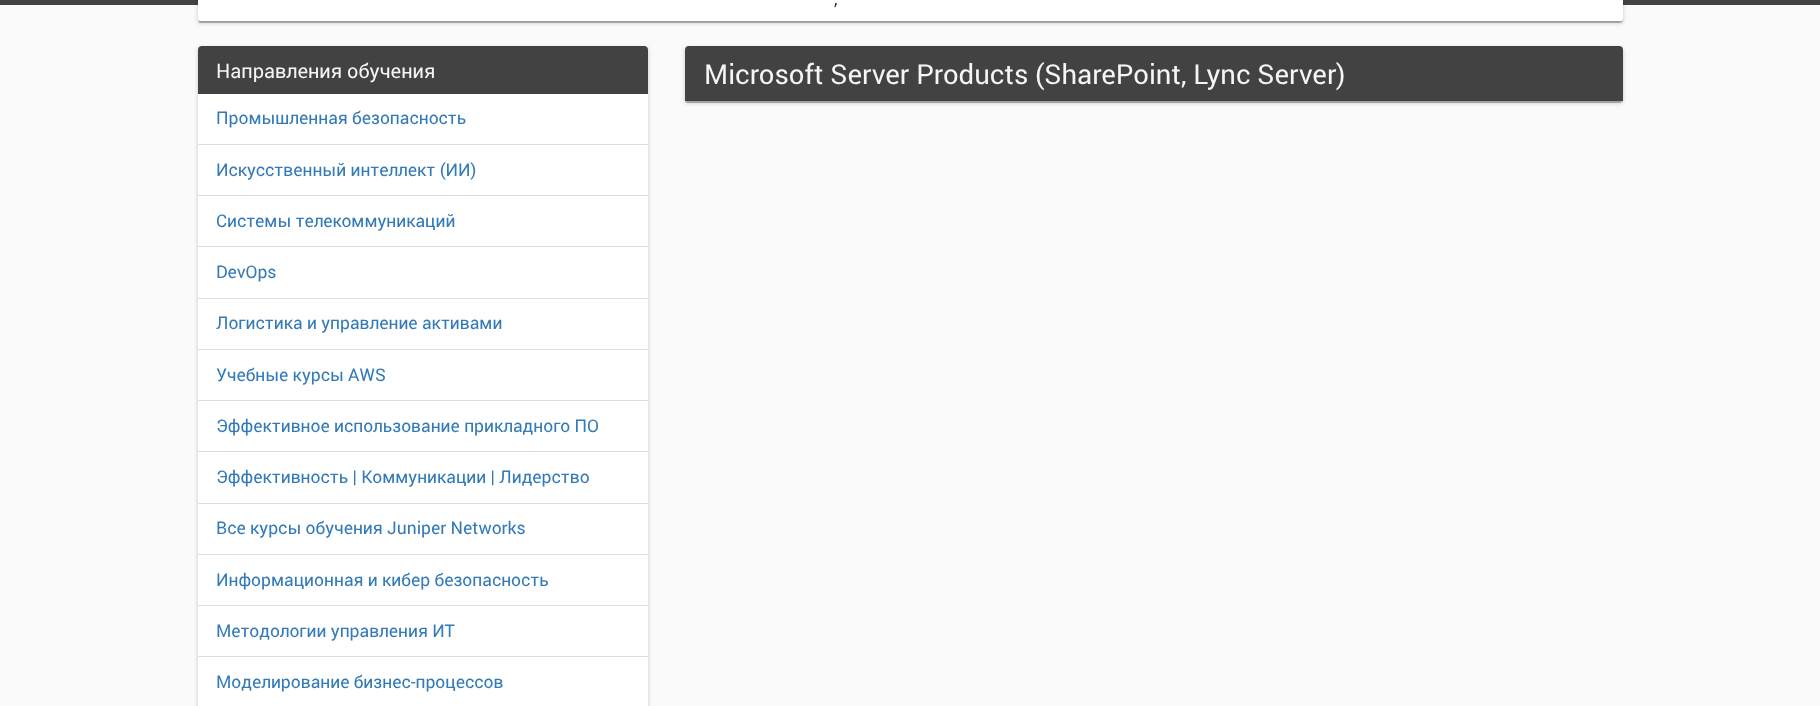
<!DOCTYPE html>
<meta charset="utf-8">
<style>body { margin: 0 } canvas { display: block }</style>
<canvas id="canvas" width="1820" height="706"></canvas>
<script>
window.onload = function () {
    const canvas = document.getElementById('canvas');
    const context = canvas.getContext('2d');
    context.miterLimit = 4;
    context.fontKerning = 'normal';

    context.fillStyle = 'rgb(250, 250, 250)';
    context.fillRect(0, 0, 1820, 706);
    context.fillStyle = 'rgb(66, 66, 66)';
    context.fillRect(0, 0, 1820, 5);
    context.fillStyle = 'rgba(0, 0, 0, 0.12)';
    context.filter = 'blur(0.5px)';
    context.beginPath();
    context.roundRect(199, -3, 1422, 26, 1);
    context.fill();
    context.filter = 'none';
    context.fillStyle = 'rgba(0, 0, 0, 0.14)';
    context.filter = 'blur(0.5px)';
    context.beginPath();
    context.roundRect(198, -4, 1425, 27, 2.5);
    context.fill();
    context.filter = 'none';
    context.fillStyle = 'rgba(0, 0, 0, 0.2)';
    context.filter = 'blur(2px)';
    context.beginPath();
    context.roundRect(198, -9, 1425, 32, 2.5);
    context.fill();
    context.filter = 'none';
    context.fillStyle = 'rgb(255, 255, 255)';
    context.beginPath();
    context.roundRect(198, -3, 1425, 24, 2.5);
    context.fill();
    context.fillStyle = 'rgba(0, 0, 0, 0.2)';
    context.filter = 'blur(2px)';
    context.beginPath();
    context.roundRect(198, 48, 450, 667, 2.5);
    context.fill();
    context.filter = 'none';
    context.fillStyle = 'rgb(255, 255, 255)';
    context.beginPath();
    context.roundRect(198, 46, 450, 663, 2.5);
    context.fill();
    context.fillStyle = 'rgb(66, 66, 66)';
    context.beginPath();
    context.roundRect(198, 46, 450, 48, [4, 4, 0, 0]);
    context.fill();
    context.fillStyle = 'rgb(221, 221, 221)';
    context.fillRect(198, 144, 450, 1);
    context.fillRect(198, 195, 450, 1);
    context.fillRect(198, 246, 450, 1);
    context.fillRect(198, 298, 450, 1);
    context.fillRect(198, 349, 450, 1);
    context.fillRect(198, 400, 450, 1);
    context.fillRect(198, 451, 450, 1);
    context.fillRect(198, 503, 450, 1);
    context.fillRect(198, 554, 450, 1);
    context.fillRect(198, 605, 450, 1);
    context.fillRect(198, 656, 450, 1);
    context.fillStyle = 'rgba(0, 0, 0, 0.12)';
    context.filter = 'blur(0.5px)';
    context.beginPath();
    context.roundRect(686, 50, 935, 53, 1);
    context.fill();
    context.filter = 'none';
    context.fillStyle = 'rgba(0, 0, 0, 0.14)';
    context.filter = 'blur(0.5px)';
    context.beginPath();
    context.roundRect(685, 48, 938, 55, 2.5);
    context.fill();
    context.filter = 'none';
    context.fillStyle = 'rgba(0, 0, 0, 0.2)';
    context.filter = 'blur(2px)';
    context.beginPath();
    context.roundRect(685, 48, 938, 55, 2.5);
    context.fill();
    context.filter = 'none';
    context.fillStyle = 'rgb(255, 255, 255)';
    context.beginPath();
    context.roundRect(685, 46, 938, 55, 2.5);
    context.fill();
    context.fillStyle = 'rgb(66, 66, 66)';
    context.beginPath();
    context.roundRect(685, 46, 938, 55, [4, 4, 0, 0]);
    context.fill();
    context.font = '17.5px Roboto';
    context.fillStyle = 'rgb(51, 51, 51)';
    context.fillText(',', 834, 5);
    context.font = '20px Roboto';
    context.fillStyle = 'rgb(245, 245, 245)';
    context.fillText('Направления обучения', 216, 78);
    context.font = '17.5px Roboto';
    context.fillStyle = 'rgb(51, 122, 183)';
    context.fillText('Промышленная безопасность', 216, 124);
    context.fillText('Искусственный интеллект (ИИ)', 216, 176);
    context.fillText('Системы телекоммуникаций', 216, 227);
    context.fillText('DevOps', 216, 278);
    context.fillText('Логистика и управление активами', 216, 329);
    context.fillText('Учебные курсы AWS', 216, 381);
    context.fillText('Эффективное использование прикладного ПО', 216, 432);
    context.fillText('Эффективность | Коммуникации | Лидерство', 216, 483);
    context.fillText('Все курсы обучения Juniper Networks', 216, 534);
    context.fillText('Информационная и кибер безопасность', 216, 586);
    context.fillText('Методологии управления ИТ', 216, 637);
    context.fillText('Моделирование бизнес-процессов', 216, 688);
    context.font = '27.5px Roboto';
    context.fillStyle = 'rgb(245, 245, 245)';
    context.fillText('Microsoft Server Products (SharePoint, Lync Server)', 704, 84);
};
</script>
